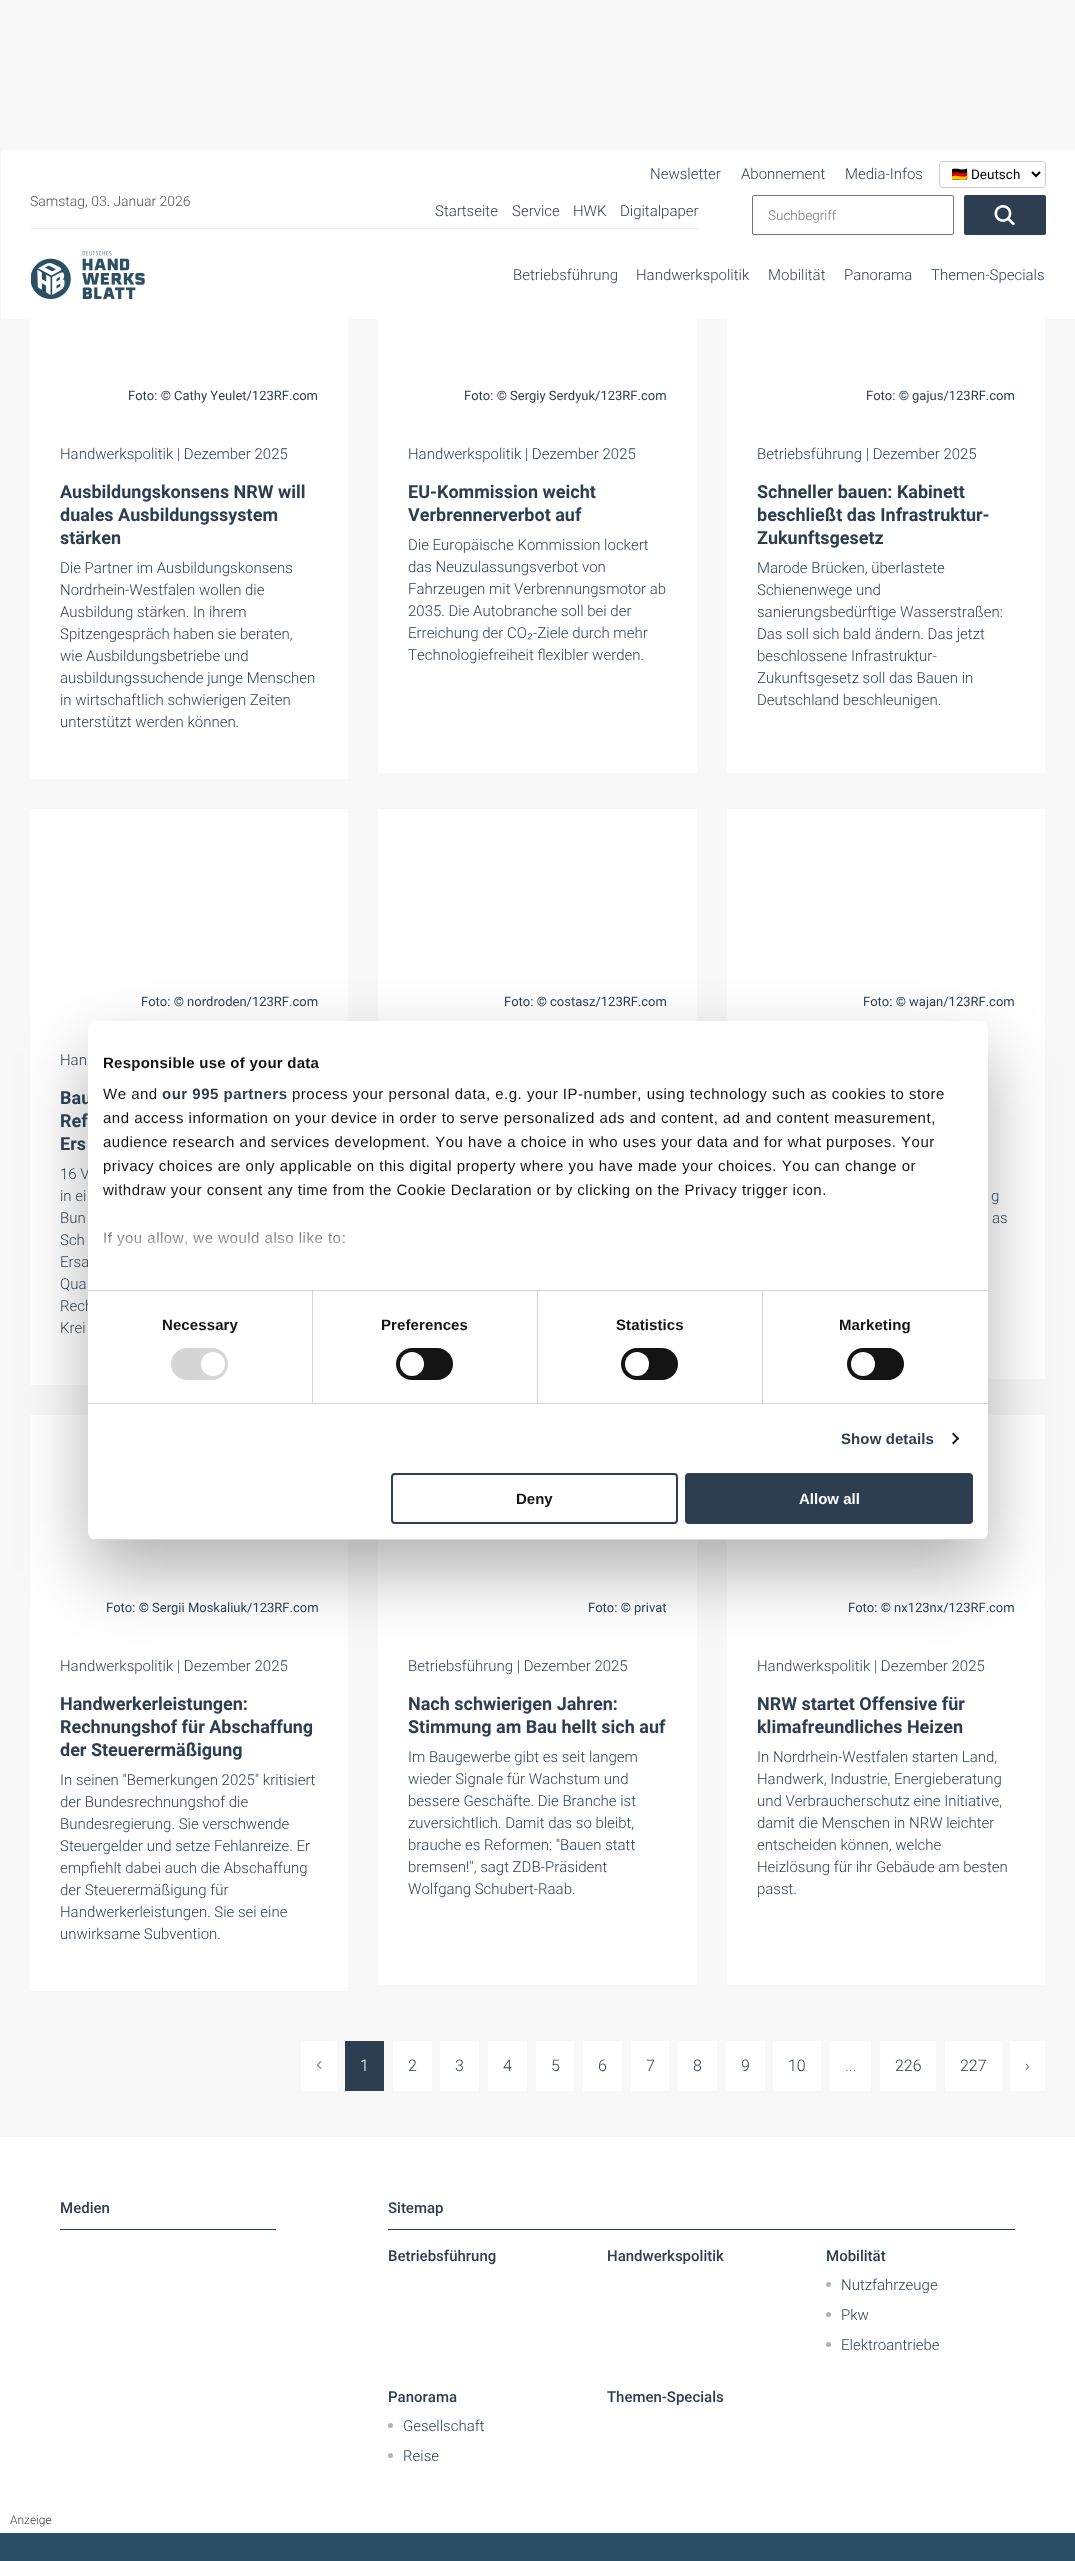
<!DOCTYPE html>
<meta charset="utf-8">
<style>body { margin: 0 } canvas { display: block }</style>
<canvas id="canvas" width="1075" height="2561"></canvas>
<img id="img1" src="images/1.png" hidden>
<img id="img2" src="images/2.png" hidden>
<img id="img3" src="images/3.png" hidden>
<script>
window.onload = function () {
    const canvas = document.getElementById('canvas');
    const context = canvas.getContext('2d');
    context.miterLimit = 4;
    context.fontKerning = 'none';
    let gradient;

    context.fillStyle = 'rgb(248, 248, 248)';
    context.fillRect(0, 0, 1075, 2561);
    context.fillStyle = 'rgb(255, 255, 255)';
    context.fillRect(1, 150, 1074, 169);
    context.beginPath();
    context.roundRect(939.5, 161.5, 106, 26, 3.5);
    context.strokeStyle = 'rgb(204, 204, 204)';
    context.stroke();
    context.beginPath();
    context.moveTo(1032, 172);
    context.lineTo(1036, 176);
    context.lineTo(1040, 172);
    context.strokeStyle = 'rgb(0, 0, 0)';
    context.lineWidth = 2;
    context.stroke();
    context.fillStyle = 'rgb(234, 236, 238)';
    context.fillRect(31, 228, 668, 1);
    context.beginPath();
    context.roundRect(752.5, 195.5, 201, 39, 1.5);
    context.strokeStyle = 'rgb(118, 118, 118)';
    context.lineWidth = 1;
    context.stroke();
    context.fillStyle = 'rgb(44, 62, 80)';
    context.beginPath();
    context.roundRect(964, 195, 82, 40, 2);
    context.fill();
    context.drawImage(document.getElementById('img1'), 994, 205, 21, 20);
    context.drawImage(document.getElementById('img2'), 31, 251, 114, 48);
    context.fillStyle = 'rgb(255, 255, 255)';
    context.fillRect(30, 319, 318, 460);
    context.fillRect(378, 319, 319, 454);
    context.fillRect(727, 319, 318, 454);
    context.fillRect(30, 809, 318, 576);
    context.fillRect(378, 809, 319, 212);
    context.fillRect(727, 809, 318, 570);
    context.fillRect(30, 1415, 318, 576);
    context.fillRect(378, 1540, 319, 445);
    context.fillRect(727, 1415, 318, 570);
    context.fillRect(301, 2041, 36, 50);
    context.drawImage(document.getElementById('img3'), 316, 2061, 6, 8);
    context.fillStyle = 'rgb(44, 62, 80)';
    context.fillRect(345, 2041, 39, 50);
    context.fillStyle = 'rgb(255, 255, 255)';
    context.fillRect(393, 2041, 39, 50);
    context.fillRect(440, 2041, 39, 50);
    context.fillRect(488, 2041, 39, 50);
    context.fillRect(536, 2041, 38, 50);
    context.fillRect(583, 2041, 39, 50);
    context.fillRect(631, 2041, 38, 50);
    context.fillRect(678, 2041, 39, 50);
    context.fillRect(726, 2041, 39, 50);
    context.fillRect(773, 2041, 48, 50);
    context.fillRect(880, 2041, 56, 50);
    context.fillRect(945, 2041, 57, 50);
    context.fillRect(1010, 2041, 35, 50);
    context.fillRect(830, 2041, 41, 50);
    context.fillRect(0, 2137, 1075, 396);
    context.fillStyle = 'rgb(44, 62, 80)';
    context.fillRect(60, 2229, 216, 1);
    context.fillRect(388, 2229, 627, 1);
    context.fillStyle = 'rgb(171, 178, 185)';
    context.beginPath();
    context.arc(828.5, 2284.5, 2.5, 0, 2 * Math.PI);
    context.fill();
    context.beginPath();
    context.arc(828.5, 2314.5, 2.5, 0, 2 * Math.PI);
    context.fill();
    context.beginPath();
    context.arc(828.5, 2344.5, 2.5, 0, 2 * Math.PI);
    context.fill();
    context.beginPath();
    context.arc(390.5, 2425.5, 2.5, 0, 2 * Math.PI);
    context.fill();
    context.beginPath();
    context.arc(390.5, 2455.5, 2.5, 0, 2 * Math.PI);
    context.fill();
    context.fillStyle = 'rgb(44, 78, 100)';
    context.fillRect(0, 2533, 1075, 28);
    context.fillStyle = 'rgba(0, 0, 0, 0.3)';
    context.filter = 'blur(34px)';
    context.beginPath();
    context.roundRect(88, 1053, 900, 519, 8);
    context.fill();
    context.filter = 'none';
    context.font = '300 15px Roboto';
    context.fillStyle = 'rgb(44, 62, 80)';
    context.fillText('Newsletter', 650, 179);
    context.fillText('Abonnement', 741, 179);
    context.fillText('Media-Infos', 845, 179);
    context.save();
    context.beginPath();
    context.rect(952, 166, 69, 17);
    context.clip();
    context.font = '13.5px Noto Color Emoji';
    context.fillStyle = 'rgb(0, 0, 0)';
    context.fillText('🇩🇪', 951, 179);
    context.restore();
    context.font = '13.5px Roboto';
    context.fillStyle = 'rgb(0, 0, 0)';
    context.fillText('Deutsch', 971, 179);
    context.font = '300 14px Roboto';
    context.fillStyle = 'rgb(79, 79, 79)';
    context.fillText('Samstag, 03. Januar 2026', 30, 206);
    context.font = '300 15px Roboto';
    context.fillStyle = 'rgb(44, 62, 80)';
    context.fillText('Startseite', 435, 216);
    context.fillText('Service', 512, 216);
    context.fillText('HWK', 573, 216);
    context.fillText('Digitalpaper', 620, 216);
    context.font = '300 13.5px Roboto';
    context.fillStyle = 'rgb(117, 117, 117)';
    context.fillText('Suchbegriff', 768, 220);
    context.font = '300 15px Roboto';
    context.fillStyle = 'rgb(44, 62, 80)';
    context.fillText('Betriebsführung', 513, 280);
    context.fillText('Handwerkspolitik', 636, 280);
    context.fillText('Mobilität', 768, 280);
    context.fillText('Panorama', 844, 280);
    context.fillText('Themen-Specials', 931, 280);
    context.font = '13px Roboto';
    context.fillText('Foto: © Cathy Yeulet/123RF.com', 128, 400);
    context.font = '300 15px Roboto';
    context.fillText('Handwerkspolitik | Dezember 2025', 60, 459);
    context.font = 'bold 18px Roboto';
    context.fillText('Ausbildungskonsens NRW will', 60, 498);
    context.fillText('duales Ausbildungssystem', 60, 521);
    context.fillText('stärken', 60, 544);
    context.font = '300 15px Roboto';
    context.fillText('Die Partner im Ausbildungskonsens', 60, 573);
    context.fillText('Nordrhein-Westfalen wollen die', 60, 595);
    context.fillText('Ausbildung stärken. In ihrem', 60, 617);
    context.fillText('Spitzengespräch haben sie beraten,', 60, 639);
    context.fillText('wie Ausbildungsbetriebe und', 60, 661);
    context.fillText('ausbildungssuchende junge Menschen', 60, 683);
    context.fillText('in wirtschaftlich schwierigen Zeiten', 60, 705);
    context.fillText('unterstützt werden können.', 60, 727);
    context.font = '13px Roboto';
    context.fillText('Foto: © Sergiy Serdyuk/123RF.com', 464, 400);
    context.font = '300 15px Roboto';
    context.fillText('Handwerkspolitik | Dezember 2025', 408, 459);
    context.font = 'bold 18px Roboto';
    context.fillText('EU-Kommission weicht', 408, 498);
    context.fillText('Verbrennerverbot auf', 408, 521);
    context.font = '300 15px Roboto';
    context.fillText('Die Europäische Kommission lockert', 408, 550);
    context.fillText('das Neuzulassungsverbot von', 408, 572);
    context.fillText('Fahrzeugen mit Verbrennungsmotor ab', 408, 594);
    context.fillText('2035. Die Autobranche soll bei der', 408, 616);
    context.fillText('Erreichung der CO', 408, 638);
    context.font = '15px Liberation Sans';
    context.fillText('₂', 527, 638);
    context.font = '300 15px Roboto';
    context.fillText('-Ziele durch mehr', 533, 638);
    context.fillText('Technologiefreiheit flexibler werden.', 408, 660);
    context.font = '13px Roboto';
    context.fillText('Foto: © gajus/123RF.com', 866, 400);
    context.font = '300 15px Roboto';
    context.fillText('Betriebsführung | Dezember 2025', 757, 459);
    context.font = 'bold 18px Roboto';
    context.fillText('Schneller bauen: Kabinett', 757, 498);
    context.fillText('beschließt das Infrastruktur-', 757, 521);
    context.fillText('Zukunftsgesetz', 757, 544);
    context.font = '300 15px Roboto';
    context.fillText('Marode Brücken, überlastete', 757, 573);
    context.fillText('Schienenwege und', 757, 595);
    context.fillText('sanierungsbedürftige Wasserstraßen:', 757, 617);
    context.fillText('Das soll sich bald ändern. Das jetzt', 757, 639);
    context.fillText('beschlossene Infrastruktur-', 757, 661);
    context.fillText('Zukunftsgesetz soll das Bauen in', 757, 683);
    context.fillText('Deutschland beschleunigen.', 757, 705);
    context.font = '13px Roboto';
    context.fillText('Foto: © nordroden/123RF.com', 141, 1006);
    context.font = '300 15px Roboto';
    context.fillText('Han', 60, 1065);
    context.font = 'bold 18px Roboto';
    context.fillText('Bau', 60, 1104);
    context.fillText('Ref', 60, 1127);
    context.fillText('Ers', 60, 1150);
    context.font = '300 15px Roboto';
    context.fillText('16 V', 60, 1179);
    context.fillText('in ei', 60, 1201);
    context.fillText('Bun', 60, 1223);
    context.fillText('Sch', 60, 1245);
    context.fillText('Ersa', 60, 1267);
    context.fillText('Qua', 60, 1289);
    context.fillText('Rech', 60, 1311);
    context.fillText('Krei', 60, 1333);
    context.font = '13px Roboto';
    context.fillText('Foto: © costasz/123RF.com', 504, 1006);
    context.fillText('Foto: © wajan/123RF.com', 863, 1006);
    context.font = '300 15px Roboto';
    context.fillText('g', 991, 1201);
    context.fillText('as', 992, 1223);
    context.font = '13px Roboto';
    context.fillText('Foto: © Sergii Moskaliuk/123RF.com', 106, 1612);
    context.font = '300 15px Roboto';
    context.fillText('Handwerkspolitik | Dezember 2025', 60, 1671);
    context.font = 'bold 18px Roboto';
    context.fillText('Handwerkerleistungen:', 60, 1710);
    context.fillText('Rechnungshof für Abschaffung', 60, 1733);
    context.fillText('der Steuerermäßigung', 60, 1756);
    context.font = '300 15px Roboto';
    context.fillText('In seinen "Bemerkungen 2025" kritisiert', 60, 1785);
    context.fillText('der Bundesrechnungshof die', 60, 1807);
    context.fillText('Bundesregierung. Sie verschwende', 60, 1829);
    context.fillText('Steuergelder und setze Fehlanreize. Er', 60, 1851);
    context.fillText('empfiehlt dabei auch die Abschaffung', 60, 1873);
    context.fillText('der Steuerermäßigung für', 60, 1895);
    context.fillText('Handwerkerleistungen. Sie sei eine', 60, 1917);
    context.fillText('unwirksame Subvention.', 60, 1939);
    context.font = '13px Roboto';
    context.fillText('Foto: © privat', 588, 1612);
    context.font = '300 15px Roboto';
    context.fillText('Betriebsführung | Dezember 2025', 408, 1671);
    context.font = 'bold 18px Roboto';
    context.fillText('Nach schwierigen Jahren:', 408, 1710);
    context.fillText('Stimmung am Bau hellt sich auf', 408, 1733);
    context.font = '300 15px Roboto';
    context.fillText('Im Baugewerbe gibt es seit langem', 408, 1762);
    context.fillText('wieder Signale für Wachstum und', 408, 1784);
    context.fillText('bessere Geschäfte. Die Branche ist', 408, 1806);
    context.fillText('zuversichtlich. Damit das so bleibt,', 408, 1828);
    context.fillText('brauche es Reformen: "Bauen statt', 408, 1850);
    context.fillText('bremsen!", sagt ZDB-Präsident', 408, 1872);
    context.fillText('Wolfgang Schubert-Raab.', 408, 1894);
    context.font = '13px Roboto';
    context.fillText('Foto: © nx123nx/123RF.com', 848, 1612);
    context.font = '300 15px Roboto';
    context.fillText('Handwerkspolitik | Dezember 2025', 757, 1671);
    context.font = 'bold 18px Roboto';
    context.fillText('NRW startet Offensive für', 757, 1710);
    context.fillText('klimafreundliches Heizen', 757, 1733);
    context.font = '300 15px Roboto';
    context.fillText('In Nordrhein-Westfalen starten Land,', 757, 1762);
    context.fillText('Handwerk, Industrie, Energieberatung', 757, 1784);
    context.fillText('und Verbraucherschutz eine Initiative,', 757, 1806);
    context.fillText('damit die Menschen in NRW leichter', 757, 1828);
    context.fillText('entscheiden können, welche', 757, 1850);
    context.fillText('Heizlösung für ihr Gebäude am besten', 757, 1872);
    context.fillText('passt.', 757, 1894);
    context.font = '300 16px Roboto';
    context.fillStyle = 'rgb(255, 255, 255)';
    context.fillText('1', 360, 2071);
    context.fillStyle = 'rgb(44, 62, 80)';
    context.fillText('2', 408, 2071);
    context.fillText('3', 455, 2071);
    context.fillText('4', 503, 2071);
    context.fillText('5', 551, 2071);
    context.fillText('6', 598, 2071);
    context.fillText('7', 646, 2071);
    context.fillText('8', 693, 2071);
    context.fillText('9', 741, 2071);
    context.fillText('10', 788, 2071);
    context.fillText('226', 895, 2071);
    context.fillText('227', 960, 2071);
    context.fillText('›', 1025, 2071);
    context.fillStyle = 'rgb(108, 117, 125)';
    context.fillText('...', 845, 2071);
    context.font = '500 15px Roboto';
    context.fillStyle = 'rgb(44, 62, 80)';
    context.fillText('Medien', 60, 2213);
    context.fillText('Sitemap', 388, 2213);
    context.fillText('Betriebsführung', 388, 2261);
    context.fillText('Handwerkspolitik', 607, 2261);
    context.fillText('Mobilität', 826, 2261);
    context.font = '300 15px Roboto';
    context.fillText('Nutzfahrzeuge', 841, 2290);
    context.fillText('Pkw', 841, 2320);
    context.fillText('Elektroantriebe', 841, 2350);
    context.font = '500 15px Roboto';
    context.fillText('Panorama', 388, 2402);
    context.font = '300 15px Roboto';
    context.fillText('Gesellschaft', 403, 2431);
    context.fillText('Reise', 403, 2461);
    context.font = '500 15px Roboto';
    context.fillText('Themen-Specials', 607, 2402);
    context.font = '300 12px Roboto';
    context.fillStyle = 'rgb(62, 62, 62)';
    context.fillText('Anzeige', 10, 2524);
    context.fillStyle = 'rgb(255, 255, 255)';
    context.beginPath();
    context.roundRect(88, 1021, 900, 519, 8);
    context.fill();
    context.fillStyle = 'rgb(214, 214, 214)';
    context.fillRect(88, 1290, 900, 1);
    context.letterSpacing = '0.25px';
    context.font = 'bold 15px Liberation Sans';
    context.fillStyle = 'rgb(20, 20, 20)';
    context.fillText('Responsible use of your data', 103, 1068);
    context.letterSpacing = '0.5px';
    context.font = '15px Liberation Sans';
    context.fillText('We and', 103, 1099);
    context.font = 'bold 15px Liberation Sans';
    context.fillStyle = 'rgb(44, 62, 80)';
    context.fillText('our 995 partners', 162, 1099);
    context.font = '15px Liberation Sans';
    context.fillStyle = 'rgb(20, 20, 20)';
    context.fillText('process your personal data, e.g. your IP-number, using technology such as cookies to store', 292, 1099);
    context.fillText('and access information on your device in order to serve personalized ads and content, ad and content measurement,', 103, 1123);
    context.fillText('audience research and services development. You have a choice in who uses your data and for what purposes. Your', 103, 1147);
    context.fillText('privacy choices are only applicable on this digital property where you have made your choices. You can change or', 103, 1171);
    context.fillText('withdraw your consent any time from the Cookie Declaration or by clicking on the Privacy trigger icon.', 103, 1195);
    context.fillText('If you allow, we would also like to:', 103, 1243);
    gradient = context.createLinearGradient(532, 1290, 532, 1215);
    gradient.addColorStop(0, 'rgb(255, 255, 255)');
    gradient.addColorStop(0.5, 'rgba(255, 255, 255, 0.8)');
    gradient.addColorStop(1, 'rgba(255, 255, 255, 0)');
    context.fillStyle = gradient;
    context.fillRect(103, 1232, 241, 15);
    context.fillStyle = 'rgb(214, 214, 214)';
    context.fillRect(88, 1403, 900, 1);
    context.fillRect(312, 1291, 1, 112);
    context.letterSpacing = '0.1px';
    context.font = 'bold 15px Liberation Sans';
    context.fillStyle = 'rgb(20, 20, 20)';
    context.fillText('Necessary', 162, 1330);
    context.fillStyle = 'rgb(214, 214, 214)';
    context.beginPath();
    context.roundRect(171, 1348, 57, 32, 16);
    context.fill();
    context.fillStyle = 'rgb(255, 255, 255)';
    context.beginPath();
    context.arc(213, 1364, 12, 0, 2 * Math.PI);
    context.fill();
    context.fillStyle = 'rgb(214, 214, 214)';
    context.fillRect(537, 1291, 1, 112);
    context.fillStyle = 'rgb(20, 20, 20)';
    context.fillText('Preferences', 381, 1330);
    context.beginPath();
    context.roundRect(396, 1348, 57, 32, 16);
    context.fill();
    context.fillStyle = 'rgb(255, 255, 255)';
    context.beginPath();
    context.arc(412, 1364, 12, 0, 2 * Math.PI);
    context.fill();
    context.fillStyle = 'rgb(214, 214, 214)';
    context.fillRect(762, 1291, 1, 112);
    context.fillStyle = 'rgb(20, 20, 20)';
    context.fillText('Statistics', 616, 1330);
    context.beginPath();
    context.roundRect(621, 1348, 57, 32, 16);
    context.fill();
    context.fillStyle = 'rgb(255, 255, 255)';
    context.beginPath();
    context.arc(637, 1364, 12, 0, 2 * Math.PI);
    context.fill();
    context.fillStyle = 'rgb(20, 20, 20)';
    context.fillText('Marketing', 839, 1330);
    context.beginPath();
    context.roundRect(847, 1348, 57, 32, 16);
    context.fill();
    context.fillStyle = 'rgb(255, 255, 255)';
    context.beginPath();
    context.arc(863, 1364, 12, 0, 2 * Math.PI);
    context.fill();
    context.fillStyle = 'rgb(44, 62, 80)';
    context.fillText('Show details', 841, 1444);
    context.fillStyle = 'rgb(20, 20, 20)';
    context.beginPath();
    context.moveTo(953.5, 1432.5);
    context.lineTo(959, 1438.5);
    context.lineTo(958, 1440);
    context.lineTo(952, 1434);
    context.closePath();
    context.fill();
    context.beginPath();
    context.moveTo(958, 1437);
    context.lineTo(959, 1438.5);
    context.lineTo(953.5, 1444.5);
    context.lineTo(952, 1443);
    context.closePath();
    context.fill();
    context.save();
    context.beginPath();
    context.roundRect(88, 1021, 900, 519, 8);
    context.clip();
    context.fillStyle = 'rgb(214, 214, 214)';
    context.fillRect(88, 1539, 900, 1);
    context.restore();
    context.beginPath();
    context.roundRect(392, 1474, 285, 49, 3);
    context.strokeStyle = 'rgb(44, 62, 80)';
    context.lineWidth = 2;
    context.stroke();
    context.letterSpacing = '0px';
    context.fillText('Deny', 516, 1504);
    context.fillStyle = 'rgb(44, 62, 80)';
    context.beginPath();
    context.roundRect(686, 1474, 286, 49, 3);
    context.fill();
    context.stroke();
    context.fillStyle = 'rgb(255, 255, 255)';
    context.fillText('Allow all', 799, 1504);
};
</script>
